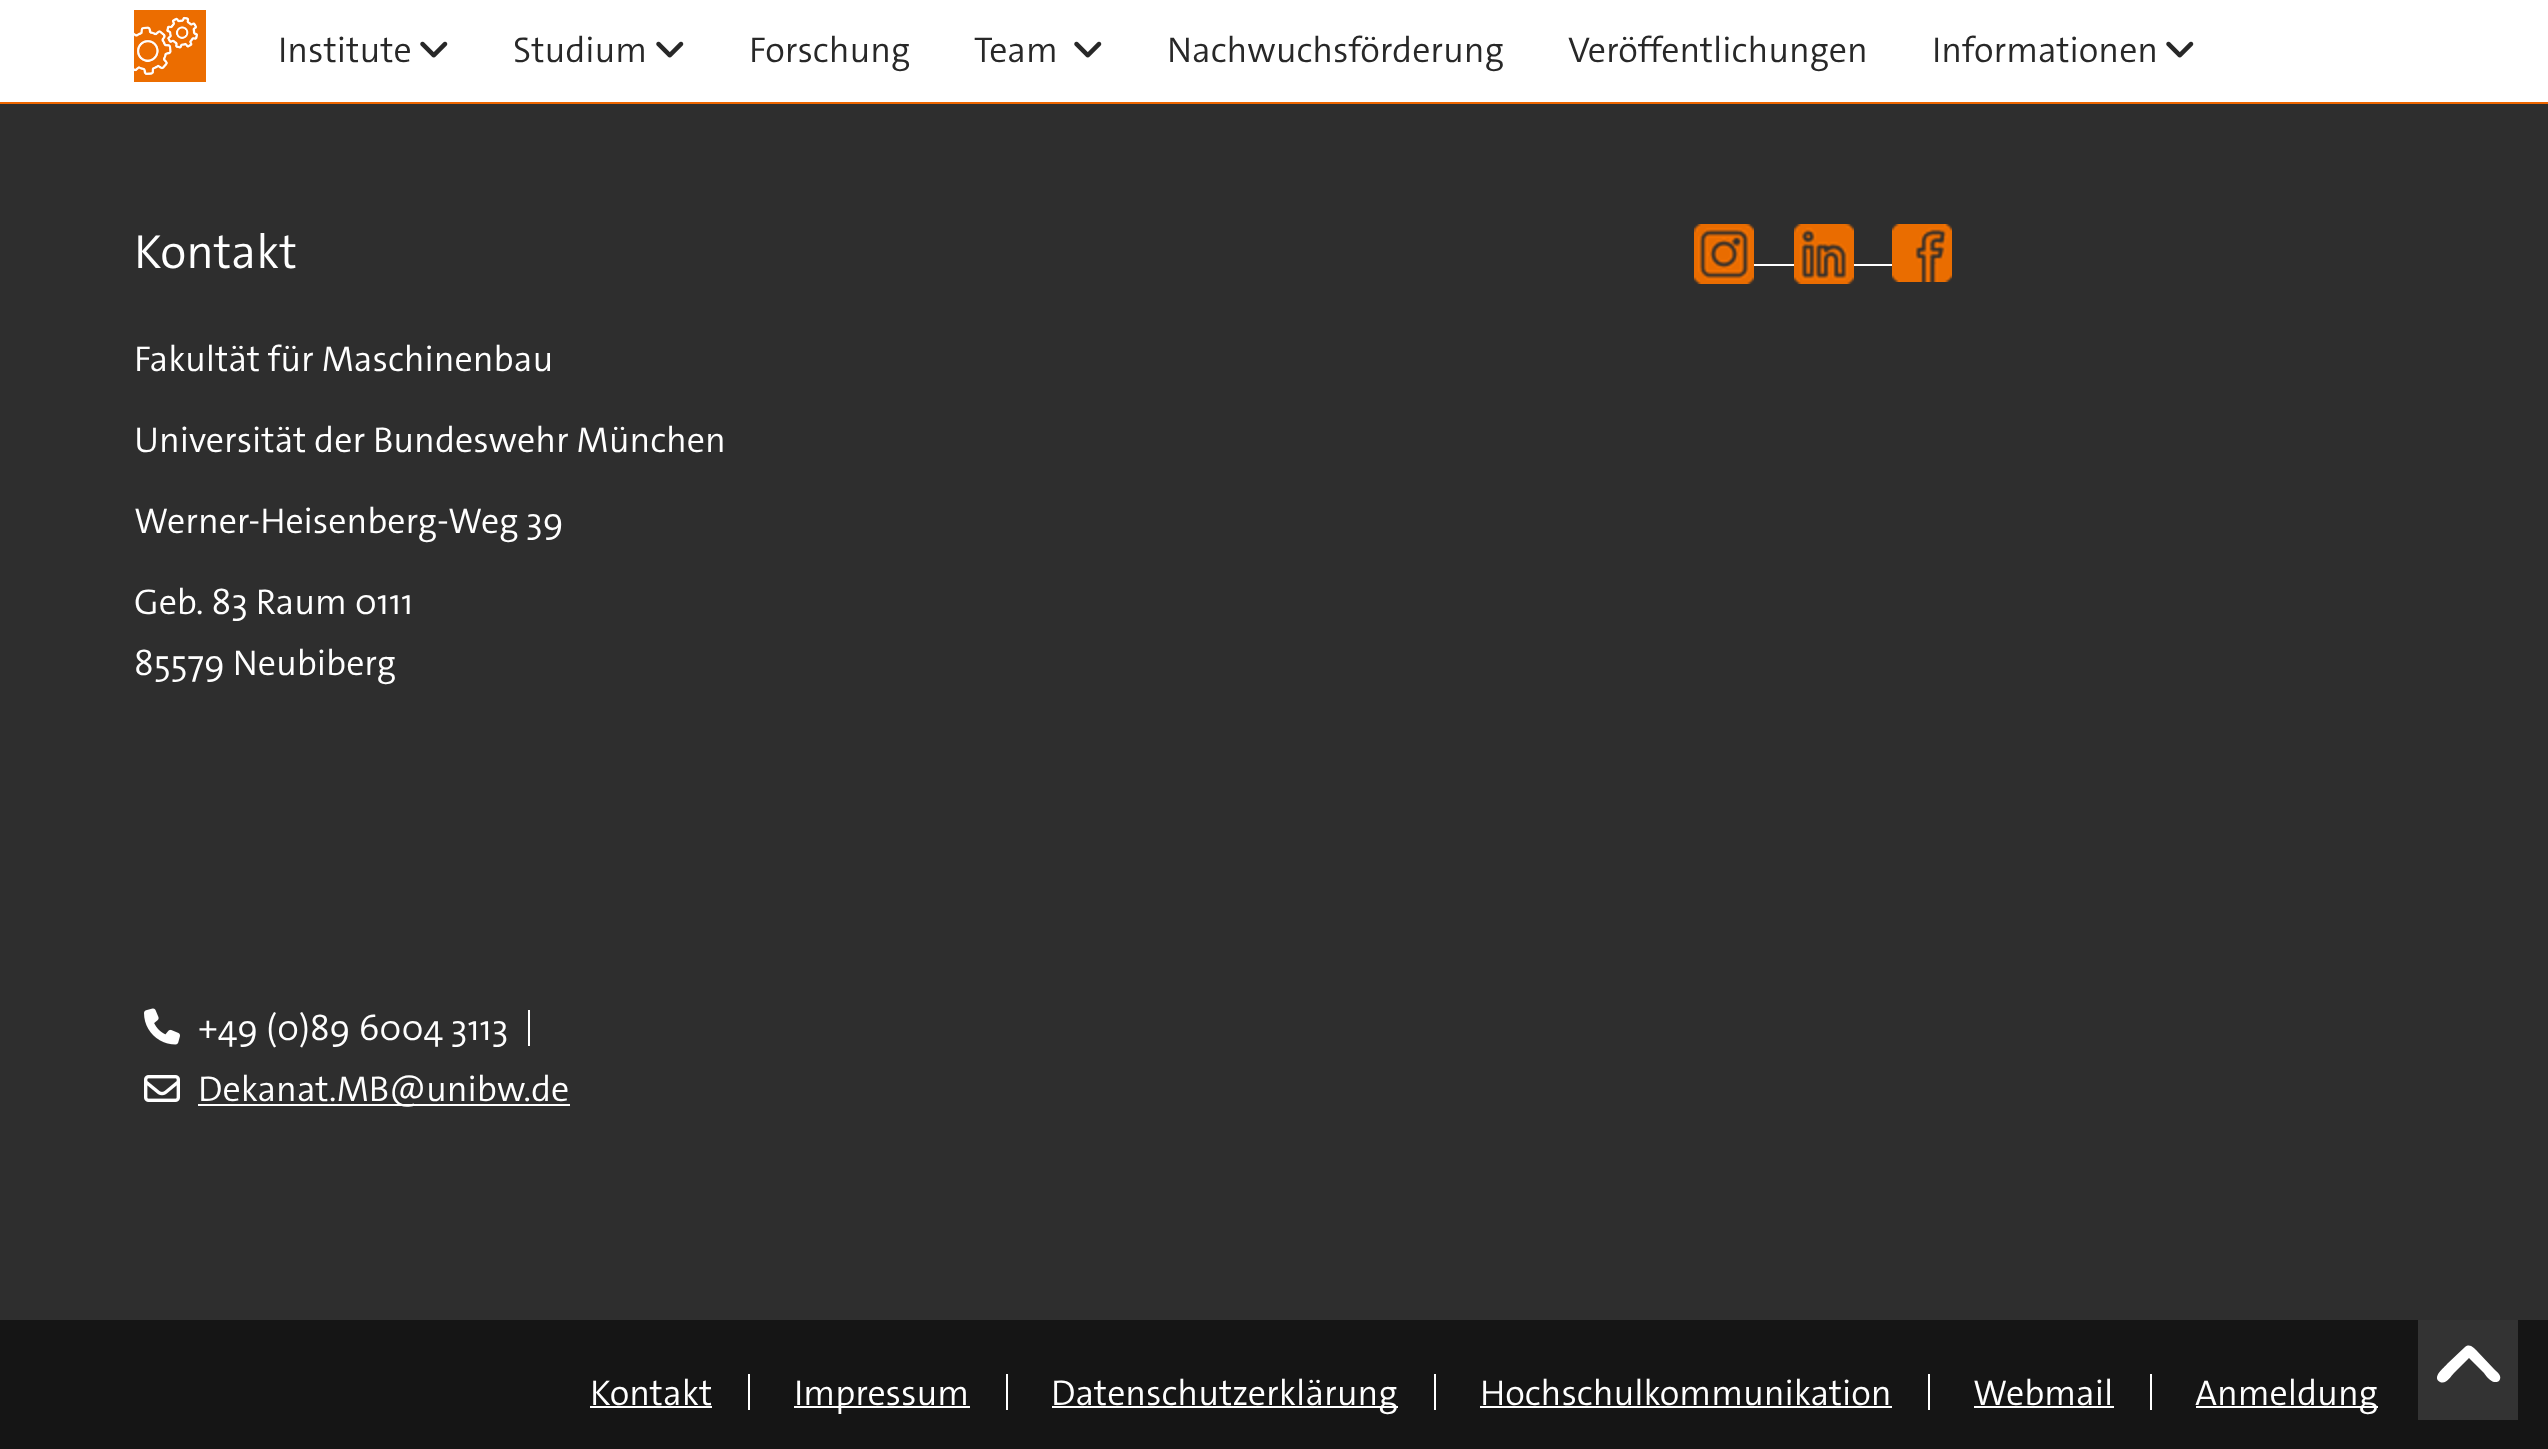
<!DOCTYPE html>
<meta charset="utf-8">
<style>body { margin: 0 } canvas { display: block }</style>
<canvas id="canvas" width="2548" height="1449"></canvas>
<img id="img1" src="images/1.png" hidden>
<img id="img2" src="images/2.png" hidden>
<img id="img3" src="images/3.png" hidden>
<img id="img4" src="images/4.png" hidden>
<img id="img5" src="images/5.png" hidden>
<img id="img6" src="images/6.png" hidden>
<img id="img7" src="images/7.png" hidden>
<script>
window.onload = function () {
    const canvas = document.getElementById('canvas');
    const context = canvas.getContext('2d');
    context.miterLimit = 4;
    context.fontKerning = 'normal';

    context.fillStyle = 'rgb(46, 46, 46)';
    context.fillRect(0, 0, 2548, 1449);
    context.fillStyle = 'rgb(255, 255, 255)';
    context.fillRect(0, 0, 2548, 102);
    context.fillStyle = 'rgb(237, 102, 0)';
    context.fillRect(0, 102, 2548, 2);
    context.drawImage(document.getElementById('img1'), 134, 10, 72, 72);
    context.drawImage(document.getElementById('img2'), 420, 41, 28, 17);
    context.drawImage(document.getElementById('img2'), 656, 41, 28, 17);
    context.drawImage(document.getElementById('img2'), 1074, 41, 28, 17);
    context.drawImage(document.getElementById('img2'), 2166, 41, 28, 17);
    context.fillStyle = 'rgb(255, 255, 255)';
    context.fillRect(528, 1010, 2, 36);
    context.drawImage(document.getElementById('img3'), 144, 1008, 36, 37);
    context.drawImage(document.getElementById('img4'), 144, 1075, 36, 27);
    context.fillRect(198, 1104, 372, 2);
    context.drawImage(document.getElementById('img5'), 1694, 224, 60, 60);
    context.fillRect(1754, 264, 40, 2);
    context.drawImage(document.getElementById('img6'), 1794, 224, 60, 60);
    context.fillRect(1854, 264, 38, 2);
    context.drawImage(document.getElementById('img7'), 1892, 224, 60, 58);
    context.fillStyle = 'rgb(21, 21, 21)';
    context.fillRect(0, 1320, 2548, 129);
    context.fillStyle = 'rgb(255, 255, 255)';
    context.fillRect(748, 1374, 2, 36);
    context.fillRect(590, 1406, 122, 2);
    context.fillRect(1006, 1374, 2, 36);
    context.fillRect(794, 1406, 176, 2);
    context.fillRect(1434, 1374, 2, 36);
    context.fillRect(1052, 1406, 346, 2);
    context.fillRect(1928, 1374, 2, 36);
    context.fillRect(1480, 1406, 412, 2);
    context.fillRect(2150, 1374, 2, 36);
    context.fillRect(1974, 1406, 140, 2);
    context.fillRect(2196, 1406, 182, 2);
    context.fillStyle = 'rgb(51, 51, 51)';
    context.fillRect(2418, 1320, 100, 100);
    context.fillStyle = 'rgb(255, 255, 255)';
    context.beginPath();
    context.moveTo(2465, 1347);
    context.bezierCurveTo(2470, 1343, 2474, 1348, 2477, 1351);
    context.lineTo(2494, 1369);
    context.bezierCurveTo(2497, 1372, 2503, 1376, 2499, 1381);
    context.bezierCurveTo(2498, 1382, 2496, 1382, 2494, 1382);
    context.bezierCurveTo(2490, 1381, 2486, 1376, 2484, 1373);
    context.lineTo(2469, 1358);
    context.lineTo(2454, 1373);
    context.bezierCurveTo(2451, 1376, 2446, 1385, 2440, 1382);
    context.bezierCurveTo(2431, 1377, 2445, 1367, 2447, 1364);
    context.closePath();
    context.fill();
    context.font = '300 36px "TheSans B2"';
    context.fillStyle = 'rgb(40, 40, 40)';
    context.fillText('Institute', 278, 62);
    context.fillText('Studium', 513, 62);
    context.fillText('Forschung', 749, 62);
    context.fillText('Team', 974, 62);
    context.fillText('Nachwuchsförderung', 1167, 62);
    context.fillText('Veröffentlichungen', 1568, 62);
    context.fillText('Informationen', 1932, 62);
    context.font = '300 48px "TheSans B2"';
    context.fillStyle = 'rgb(255, 255, 255)';
    context.fillText('Kontakt', 134, 268);
    context.font = '300 36px "TheSans B2"';
    context.fillText('Fakultät für Maschinenbau', 134, 371);
    context.fillText('Universität der Bundeswehr München', 134, 452);
    context.fillText('Werner-Heisenberg-Weg 39', 134, 533);
    context.fillText('Geb. 83 Raum 0111', 134, 614);
    context.fillText('85579 Neubiberg', 134, 675);
    context.fillText('+49 (0)89 6004 3113', 198, 1040);
    context.fillText('Dekanat.MB@unibw.de', 198, 1101);
    context.fillText('Kontakt', 590, 1405);
    context.fillText('Impressum', 794, 1405);
    context.fillText('Datenschutzerklärung', 1051, 1405);
    context.fillText('Hochschulkommunikation', 1480, 1405);
    context.fillText('Webmail', 1973, 1405);
    context.fillText('Anmeldung', 2195, 1405);
};
</script>
